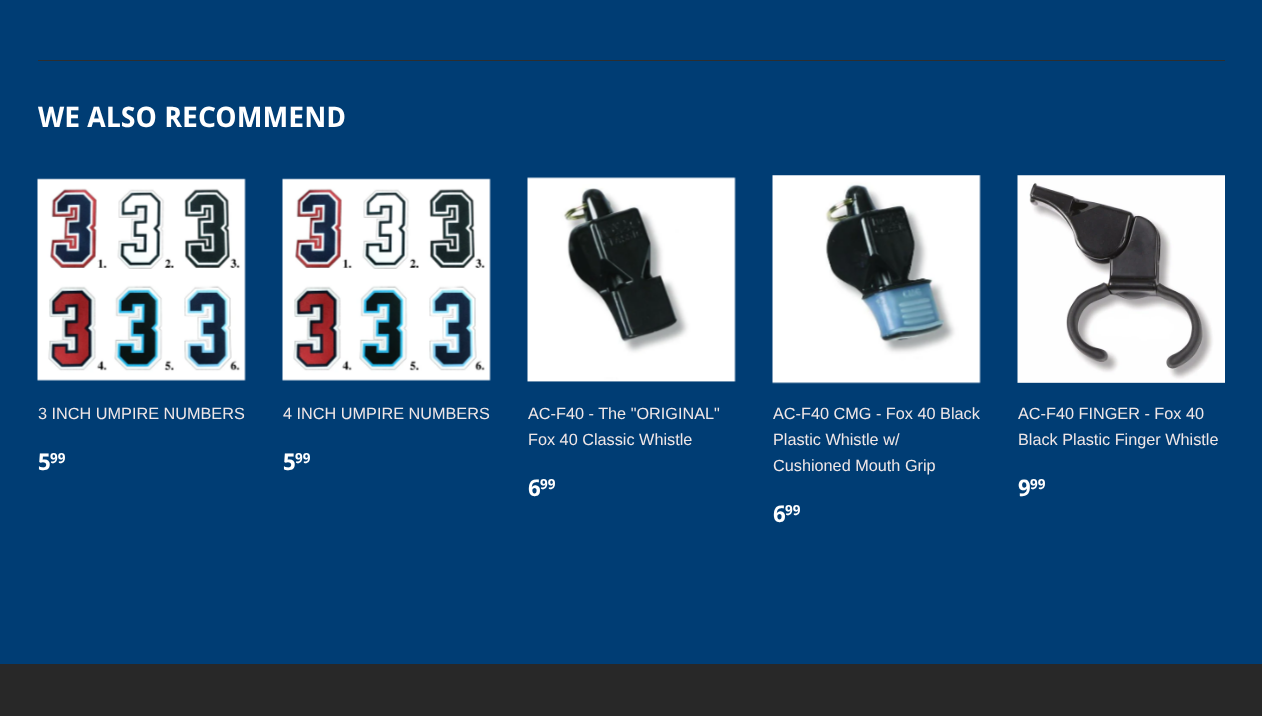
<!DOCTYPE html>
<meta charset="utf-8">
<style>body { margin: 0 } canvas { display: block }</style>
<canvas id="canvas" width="1262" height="716"></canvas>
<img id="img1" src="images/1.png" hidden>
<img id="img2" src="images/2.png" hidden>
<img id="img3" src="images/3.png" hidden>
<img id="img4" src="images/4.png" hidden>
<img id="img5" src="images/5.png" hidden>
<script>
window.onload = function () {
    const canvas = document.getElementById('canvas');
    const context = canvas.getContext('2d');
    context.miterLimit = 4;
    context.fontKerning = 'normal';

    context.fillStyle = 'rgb(0, 61, 116)';
    context.fillRect(0, 0, 1262, 716);
    context.fillStyle = 'rgb(46, 46, 46)';
    context.fillRect(38, 60, 1187, 1);
    context.drawImage(document.getElementById('img1'), 37, 178, 209, 203);
    context.drawImage(document.getElementById('img2'), 282, 178, 209, 203);
    context.drawImage(document.getElementById('img3'), 527, 177, 209, 205);
    context.drawImage(document.getElementById('img4'), 772, 175, 209, 209);
    context.drawImage(document.getElementById('img5'), 1017, 175, 208, 208);
    context.fillStyle = 'rgb(40, 40, 40)';
    context.fillRect(0, 664, 1262, 52);
    context.font = 'bold 28.25px Droid Sans';
    context.fillStyle = 'rgb(255, 255, 255)';
    context.fillText('WE ALSO RECOMMEND', 38, 127);
    context.font = '16.25px Liberation Sans';
    context.fillStyle = 'rgb(240, 231, 231)';
    context.fillText('3 INCH UMPIRE NUMBERS', 38, 419);
    context.font = 'bold 23px Droid Sans';
    context.fillStyle = 'rgb(255, 255, 255)';
    context.fillText('5', 38, 470);
    context.font = 'bold 14px Droid Sans';
    context.fillText('99', 50, 463);
    context.font = '16.25px Liberation Sans';
    context.fillStyle = 'rgb(240, 231, 231)';
    context.fillText('4 INCH UMPIRE NUMBERS', 283, 419);
    context.font = 'bold 23px Droid Sans';
    context.fillStyle = 'rgb(255, 255, 255)';
    context.fillText('5', 283, 470);
    context.font = 'bold 14px Droid Sans';
    context.fillText('99', 295, 463);
    context.font = '16.25px Liberation Sans';
    context.fillStyle = 'rgb(240, 231, 231)';
    context.fillText('AC-F40 - The "ORIGINAL"', 528, 419);
    context.fillText('Fox 40 Classic Whistle', 528, 445);
    context.font = 'bold 23px Droid Sans';
    context.fillStyle = 'rgb(255, 255, 255)';
    context.fillText('6', 528, 496);
    context.font = 'bold 14px Droid Sans';
    context.fillText('99', 540, 489);
    context.font = '16.25px Liberation Sans';
    context.fillStyle = 'rgb(240, 231, 231)';
    context.fillText('AC-F40 CMG - Fox 40 Black', 773, 419);
    context.fillText('Plastic Whistle w/', 773, 445);
    context.fillText('Cushioned Mouth Grip', 773, 471);
    context.font = 'bold 23px Droid Sans';
    context.fillStyle = 'rgb(255, 255, 255)';
    context.fillText('6', 773, 522);
    context.font = 'bold 14px Droid Sans';
    context.fillText('99', 785, 515);
    context.font = '16.25px Liberation Sans';
    context.fillStyle = 'rgb(240, 231, 231)';
    context.fillText('AC-F40 FINGER - Fox 40', 1018, 419);
    context.fillText('Black Plastic Finger Whistle', 1018, 445);
    context.font = 'bold 23px Droid Sans';
    context.fillStyle = 'rgb(255, 255, 255)';
    context.fillText('9', 1018, 496);
    context.font = 'bold 14px Droid Sans';
    context.fillText('99', 1030, 489);
};
</script>
